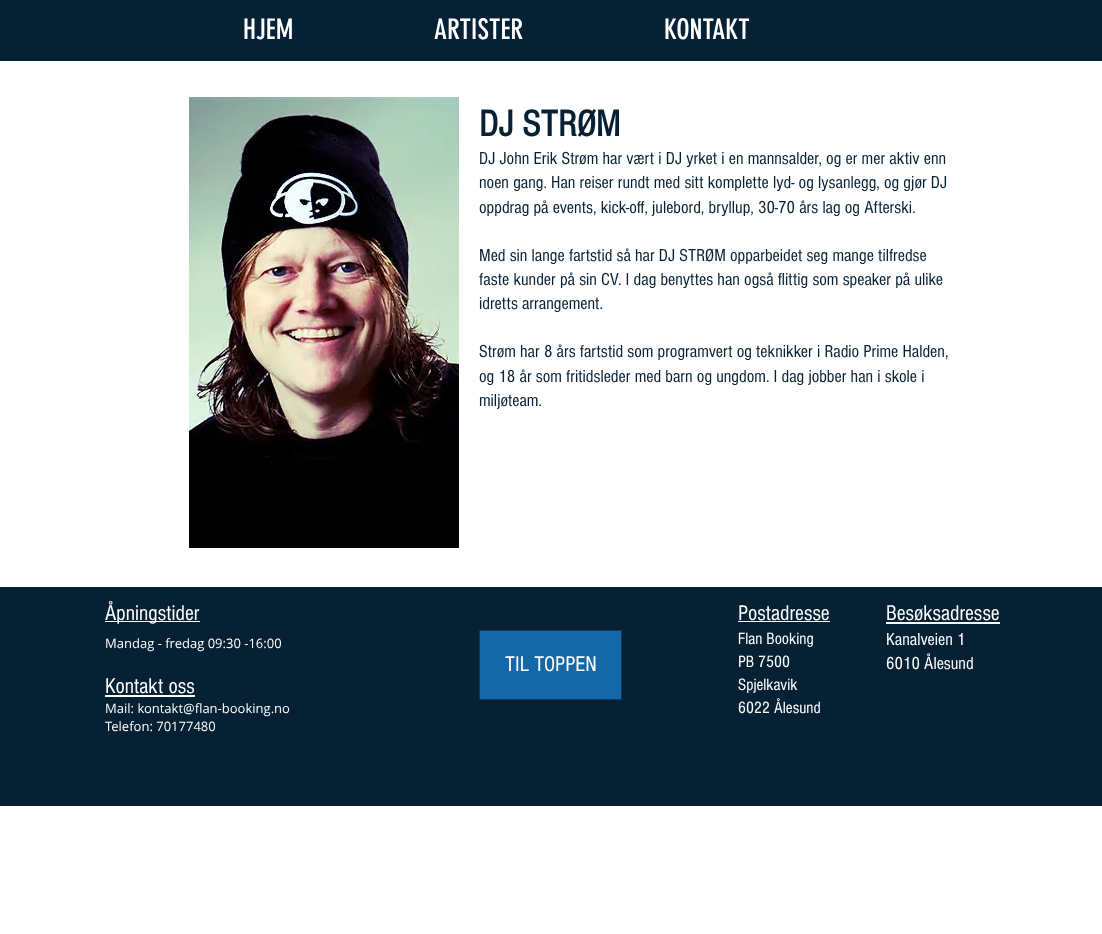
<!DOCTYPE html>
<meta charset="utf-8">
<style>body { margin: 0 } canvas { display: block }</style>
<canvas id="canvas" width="1102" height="934"></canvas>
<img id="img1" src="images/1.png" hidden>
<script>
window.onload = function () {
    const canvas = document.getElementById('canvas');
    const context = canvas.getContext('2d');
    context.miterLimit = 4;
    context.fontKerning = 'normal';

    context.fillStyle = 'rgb(255, 255, 255)';
    context.fillRect(0, 0, 1102, 934);
    context.fillStyle = 'rgb(6, 33, 52)';
    context.fillRect(0, 0, 1102, 61);
    context.drawImage(document.getElementById('img1'), 189, 97, 270, 451);
    context.fillRect(0, 587, 1102, 219);
    context.fillStyle = 'rgb(255, 255, 255)';
    context.fillRect(105, 621, 95, 1);
    context.fillRect(105, 695, 90, 2);
    context.fillStyle = 'rgb(20, 104, 168)';
    context.beginPath();
    context.rect(479.5, 630.5, 142, 69);
    context.fill();
    context.strokeStyle = 'rgb(12, 60, 96)';
    context.stroke();
    context.fillStyle = 'rgb(255, 255, 255)';
    context.fillRect(738, 621, 92, 1);
    context.fillRect(886, 622, 114, 2);
    context.font = '28px "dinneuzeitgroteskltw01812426"';
    context.fillText('HJEM', 243, 39);
    context.fillText('ARTISTER', 434, 39);
    context.fillText('KONTAKT', 664, 39);
    context.font = 'bold 38px "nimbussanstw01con"';
    context.fillStyle = 'rgb(6, 33, 52)';
    context.fillText('DJ STRØM', 479, 136);
    context.font = '18px "nimbussanstw01con"';
    context.fillText('DJ John Erik Strøm har vært i DJ yrket i en mannsalder, og er mer aktiv enn', 479, 164);
    context.fillText('noen gang. Han reiser rundt med sitt komplette lyd- og lysanlegg, og gjør DJ', 479, 188);
    context.fillText('oppdrag på events, kick-off, julebord, bryllup, 30-70 års lag og Afterski.', 479, 213);
    context.fillText('Med sin lange fartstid så har DJ STRØM opparbeidet seg mange tilfredse', 479, 261);
    context.fillText('faste kunder på sin CV. I dag benyttes han også flittig som speaker på ulike', 479, 285);
    context.fillText('idretts arrangement.', 479, 309);
    context.fillText('Strøm har 8 års fartstid som programvert og teknikker i Radio Prime Halden,', 479, 357);
    context.fillText('og 18 år som fritidsleder med barn og ungdom. I dag jobber han i skole i', 479, 382);
    context.fillText('miljøteam.', 479, 406);
    context.font = '22px "nimbussanstw01con"';
    context.fillStyle = 'rgb(255, 255, 255)';
    context.fillText('Åpningstider', 105, 620);
    context.font = '13px Open Sans';
    context.fillText('Mandag - fredag 09:30 -16:00', 105, 648);
    context.font = '22px "nimbussanstw01con"';
    context.fillText('Kontakt oss', 105, 693);
    context.font = '13px Open Sans';
    context.fillText('Mail: kontakt@flan-booking.no', 105, 713);
    context.fillText('Telefon: 70177480', 105, 731);
    context.font = '22px "nimbussanstw01con"';
    context.fillText('TIL TOPPEN', 505, 671);
    context.fillText('Postadresse', 738, 620);
    context.font = '17px "nimbussanstw01con"';
    context.fillText('Flan Booking', 738, 644);
    context.fillText('PB 7500', 738, 667);
    context.fillText('Spjelkavik', 738, 690);
    context.fillText('6022 Ålesund', 738, 713);
    context.font = '22px "nimbussanstw01con"';
    context.fillText('Besøksadresse', 886, 620);
    context.font = '18px "nimbussanstw01con"';
    context.fillText('Kanalveien 1', 886, 645);
    context.fillText('6010 Ålesund', 886, 669);
};
</script>
